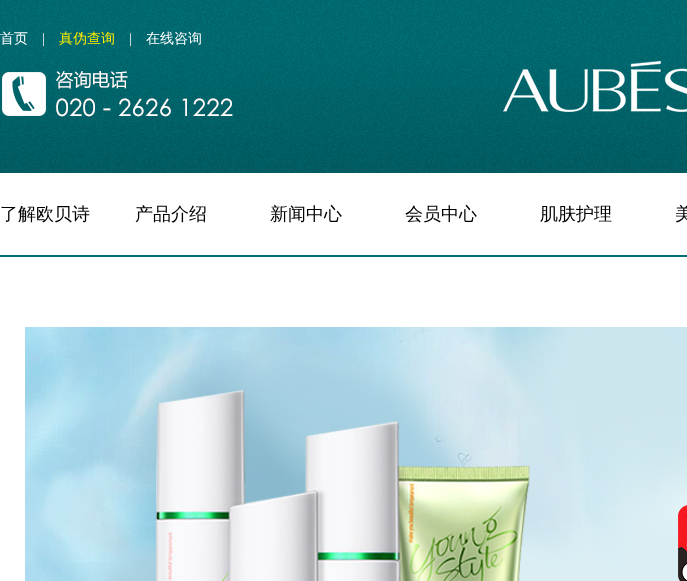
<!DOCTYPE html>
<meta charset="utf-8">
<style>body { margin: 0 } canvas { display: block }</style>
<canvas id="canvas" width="687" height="581"></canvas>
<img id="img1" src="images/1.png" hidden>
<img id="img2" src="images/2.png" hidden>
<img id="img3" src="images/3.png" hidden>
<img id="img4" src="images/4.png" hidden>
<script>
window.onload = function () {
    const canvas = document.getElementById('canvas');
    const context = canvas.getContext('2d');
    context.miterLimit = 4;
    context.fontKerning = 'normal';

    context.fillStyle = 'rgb(255, 255, 255)';
    context.fillRect(0, 0, 687, 581);
    context.drawImage(document.getElementById('img1'), 0, 0, 687, 173);
    context.drawImage(document.getElementById('img2'), 503, 61, 184, 51);
    context.drawImage(document.getElementById('img3'), 0, 67, 238, 55);
    context.fillStyle = 'rgb(0, 110, 117)';
    context.fillRect(0, 255, 687, 2);
    context.drawImage(document.getElementById('img4'), 25, 327, 662, 254);
    context.font = '500 14px WenQuanYi Zen Hei';
    context.fillStyle = 'rgb(255, 255, 255)';
    context.fillText('首页', 0, 43);
    context.font = '14px Liberation Serif';
    context.fillText('|', 42, 43);
    context.font = '500 14px WenQuanYi Zen Hei';
    context.fillStyle = 'rgb(255, 237, 0)';
    context.fillText('真伪查询', 59, 43);
    context.font = '14px Liberation Serif';
    context.fillStyle = 'rgb(255, 255, 255)';
    context.fillText('|', 129, 43);
    context.font = '500 14px WenQuanYi Zen Hei';
    context.fillText('在线咨询', 146, 43);
    context.font = '500 18px WenQuanYi Zen Hei';
    context.fillStyle = 'rgb(0, 0, 0)';
    context.fillText('了解欧贝诗', 0, 220);
    context.fillText('产品介绍', 135, 220);
    context.fillText('新闻中心', 270, 220);
    context.fillText('会员中心', 405, 220);
    context.fillText('肌肤护理', 540, 220);
    context.fillText('美', 675, 220);
};
</script>
